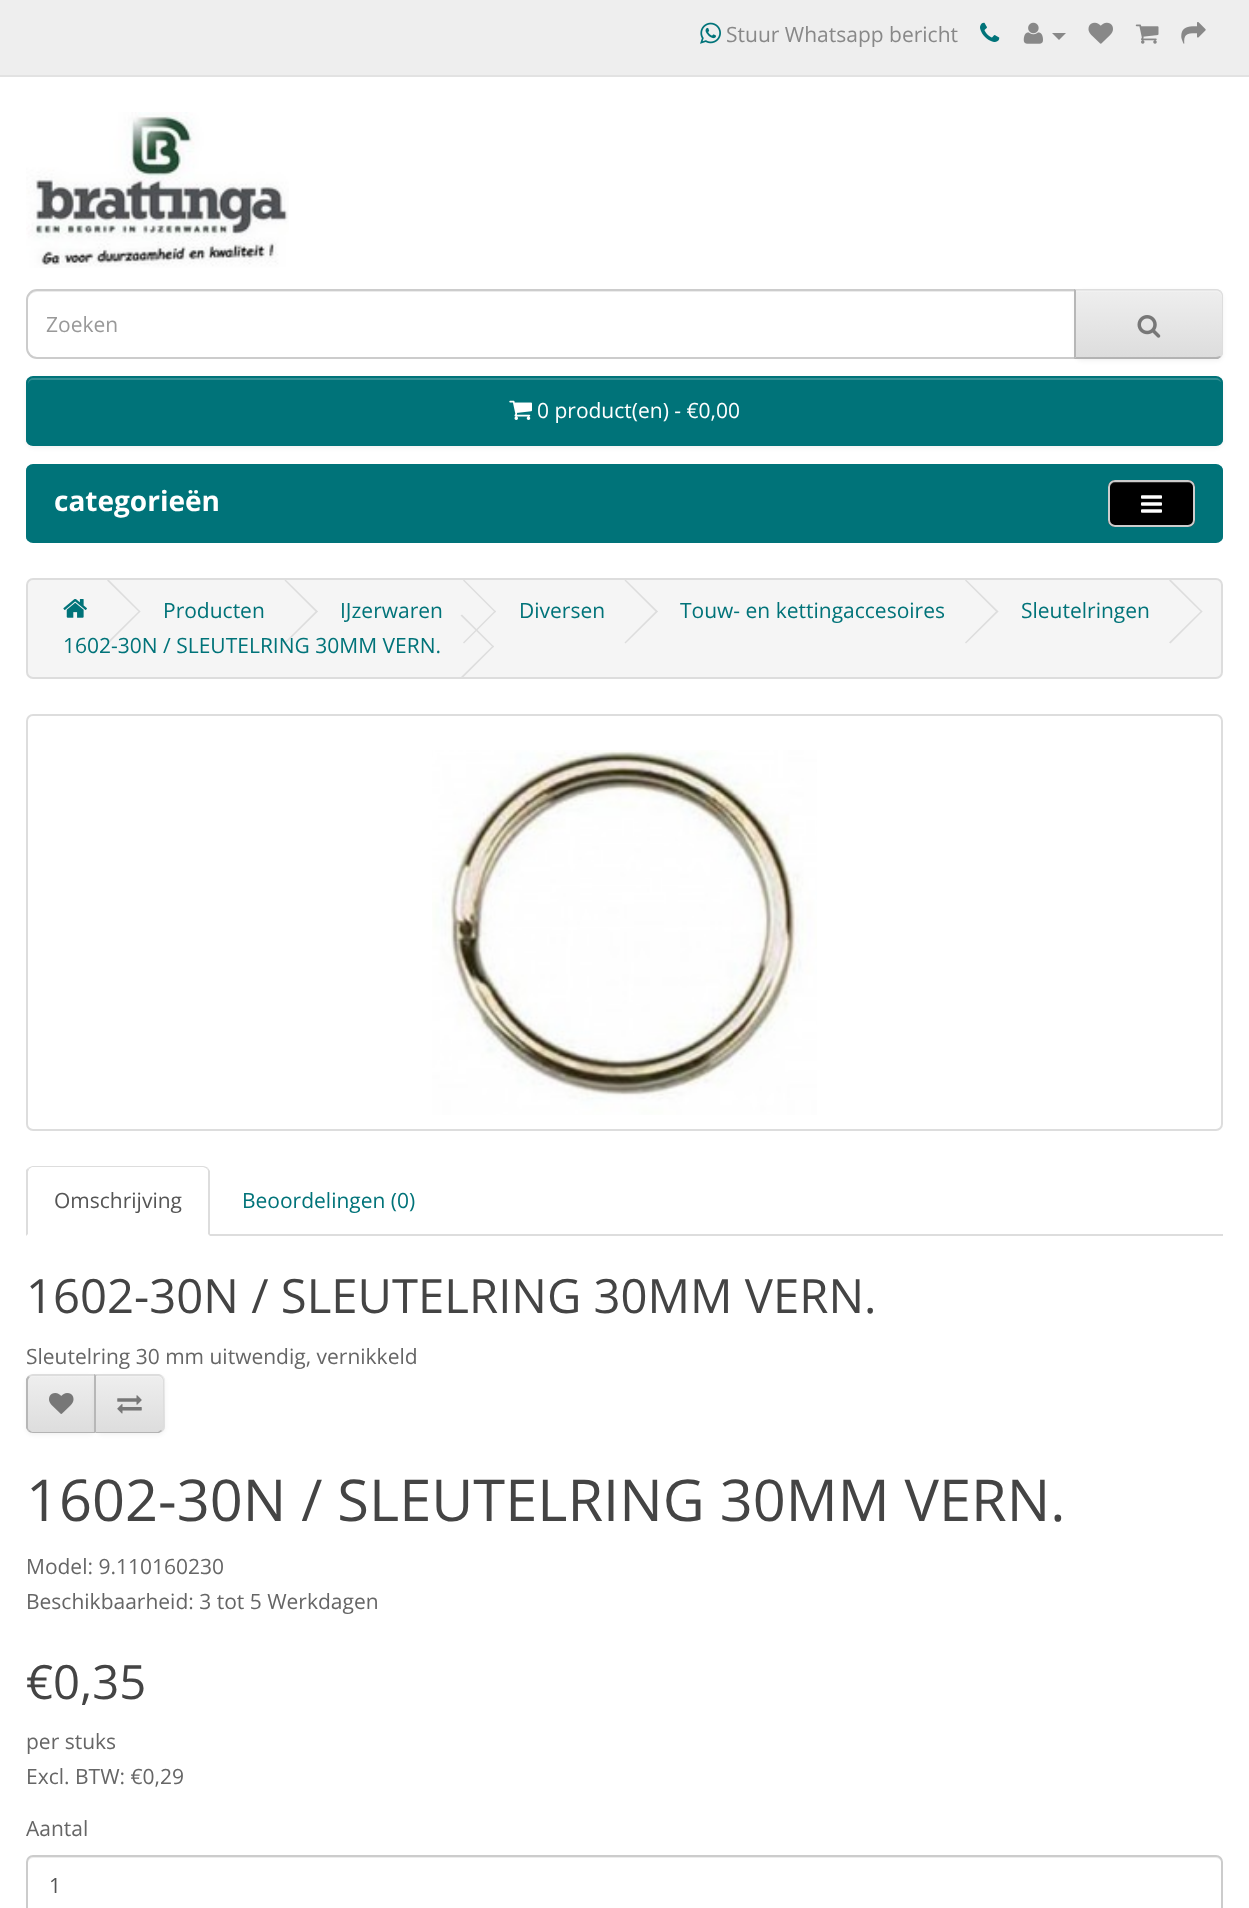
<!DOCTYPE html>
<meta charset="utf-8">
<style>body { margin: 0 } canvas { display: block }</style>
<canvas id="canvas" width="1249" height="1908"></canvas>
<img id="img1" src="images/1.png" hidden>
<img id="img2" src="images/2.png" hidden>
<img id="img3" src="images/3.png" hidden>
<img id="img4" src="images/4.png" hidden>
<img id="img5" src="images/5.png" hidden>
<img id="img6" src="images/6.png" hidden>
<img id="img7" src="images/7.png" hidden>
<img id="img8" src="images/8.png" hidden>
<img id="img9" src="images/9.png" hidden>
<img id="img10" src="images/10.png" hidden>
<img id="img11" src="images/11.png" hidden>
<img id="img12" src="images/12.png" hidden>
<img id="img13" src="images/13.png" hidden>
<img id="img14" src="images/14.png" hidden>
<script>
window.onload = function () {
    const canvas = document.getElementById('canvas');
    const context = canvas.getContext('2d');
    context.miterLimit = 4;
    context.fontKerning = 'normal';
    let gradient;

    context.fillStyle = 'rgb(255, 255, 255)';
    context.fillRect(0, 0, 1249, 1908);
    context.fillStyle = 'rgb(238, 238, 238)';
    context.fillRect(0, 0, 1249, 75);
    context.fillStyle = 'rgb(226, 226, 226)';
    context.fillRect(0, 75, 1249, 2);
    context.drawImage(document.getElementById('img1'), 700, 22, 21, 22);
    context.drawImage(document.getElementById('img2'), 980, 22, 20, 20);
    context.drawImage(document.getElementById('img3'), 1023, 22, 20, 22);
    context.fillStyle = 'rgb(136, 136, 136)';
    context.beginPath();
    context.moveTo(1052, 33);
    context.lineTo(1066, 33);
    context.lineTo(1059, 40);
    context.closePath();
    context.fill();
    context.drawImage(document.getElementById('img4'), 1088, 22, 25, 22);
    context.drawImage(document.getElementById('img5'), 1135, 24, 24, 20);
    context.drawImage(document.getElementById('img6'), 1181, 22, 25, 22);
    context.drawImage(document.getElementById('img7'), 26, 112, 263, 156);
    context.fillStyle = 'rgb(236, 236, 236)';
    context.beginPath();
    context.moveTo(37, 292);
    context.lineTo(1074, 292);
    context.lineTo(1074, 357);
    context.lineTo(1075, 357);
    context.lineTo(1075, 291);
    context.lineTo(37, 291);
    context.bezierCurveTo(31, 291, 28, 296, 28, 301);
    context.bezierCurveTo(28, 296, 32, 292, 37, 292);
    context.closePath();
    context.fill();
    context.beginPath();
    context.roundRect(27, 290, 1048, 68, [10, 0, 0, 10]);
    context.strokeStyle = 'rgb(204, 204, 204)';
    context.lineWidth = 2;
    context.stroke();
    context.fillStyle = 'rgba(0, 0, 0, 0.05)';
    context.filter = 'blur(2px)';
    context.beginPath();
    context.roundRect(1075, 291, 148, 70, 7);
    context.fill();
    context.filter = 'none';
    context.fillStyle = 'rgb(231, 231, 231)';
    context.beginPath();
    context.roundRect(1075, 289, 148, 70, [0, 7, 7, 0]);
    context.fill();
    context.save();
    context.beginPath();
    context.roundRect(1075, 289, 148, 70, [0, 7, 7, 0]);
    context.clip();
    gradient = context.createLinearGradient(1149, 291, 1149, 357);
    gradient.addColorStop(0, 'rgb(238, 238, 238)');
    gradient.addColorStop(1, 'rgb(221, 221, 221)');
    context.fillStyle = gradient;
    context.fillRect(1076, 291, 147, 66);
    context.restore();
    context.fillStyle = 'rgb(241, 241, 241)';
    context.beginPath();
    context.moveTo(1076, 292);
    context.lineTo(1216, 292);
    context.bezierCurveTo(1219, 292, 1222, 295, 1222, 298);
    context.lineTo(1222, 296);
    context.bezierCurveTo(1222, 293, 1220, 291, 1217, 291);
    context.lineTo(1076, 291);
    context.closePath();
    context.fill();
    context.fillStyle = 'rgb(221, 221, 221)';
    context.beginPath();
    context.moveTo(1076, 290);
    context.lineTo(1217, 290);
    context.lineTo(1220, 292);
    context.lineTo(1221, 291);
    context.bezierCurveTo(1220, 290, 1218, 289, 1216, 289);
    context.lineTo(1075, 289);
    context.closePath();
    context.fill();
    context.beginPath();
    context.moveTo(1221, 291);
    context.bezierCurveTo(1222, 292, 1223, 294, 1223, 296);
    context.lineTo(1223, 352);
    context.bezierCurveTo(1223, 354, 1222, 356, 1221, 357);
    context.lineTo(1220, 356);
    context.bezierCurveTo(1221, 355, 1222, 354, 1222, 352);
    context.lineTo(1222, 296);
    context.bezierCurveTo(1222, 294, 1221, 293, 1220, 292);
    context.closePath();
    context.fill();
    context.fillStyle = 'rgb(179, 179, 179)';
    context.beginPath();
    context.moveTo(1221, 357);
    context.lineTo(1218, 359);
    context.lineTo(1074, 359);
    context.lineTo(1076, 357);
    context.lineTo(1216, 357);
    context.bezierCurveTo(1218, 357, 1219, 356, 1220, 356);
    context.closePath();
    context.fill();
    context.fillStyle = 'rgb(183, 183, 183)';
    context.beginPath();
    context.moveTo(1074, 359);
    context.lineTo(1076, 357);
    context.lineTo(1076, 290);
    context.lineTo(1074, 289);
    context.closePath();
    context.fill();
    context.drawImage(document.getElementById('img8'), 1137, 315, 24, 23);
    context.fillStyle = 'rgba(0, 0, 0, 0.05)';
    context.filter = 'blur(2px)';
    context.beginPath();
    context.roundRect(26, 378, 1197, 70, 7);
    context.fill();
    context.filter = 'none';
    context.save();
    context.beginPath();
    context.roundRect(26, 376, 1197, 70, 7);
    context.clip();
    context.fillStyle = 'rgb(0, 115, 121)';
    context.fillRect(26, 378, 1197, 67);
    context.restore();
    context.fillStyle = 'rgb(51, 143, 148)';
    context.beginPath();
    context.moveTo(33, 380);
    context.lineTo(1216, 380);
    context.bezierCurveTo(1219, 380, 1222, 382, 1222, 385);
    context.lineTo(1222, 383);
    context.bezierCurveTo(1222, 380, 1220, 378, 1217, 378);
    context.lineTo(33, 378);
    context.bezierCurveTo(30, 378, 28, 380, 28, 383);
    context.lineTo(28, 385);
    context.bezierCurveTo(28, 382, 30, 380, 33, 380);
    context.closePath();
    context.fill();
    context.beginPath();
    context.roundRect(27, 377, 1195, 68, 6);
    context.strokeStyle = 'rgb(0, 115, 121)';
    context.stroke();
    context.drawImage(document.getElementById('img9'), 509, 400, 23, 20);
    context.save();
    context.beginPath();
    context.roundRect(26, 464, 1197, 79, 7);
    context.clip();
    context.fillStyle = 'rgb(0, 115, 121)';
    context.fillRect(26, 466, 1197, 75);
    context.restore();
    context.beginPath();
    context.roundRect(27, 465, 1195, 77, 6);
    context.stroke();
    context.fillStyle = 'rgb(0, 0, 0)';
    context.beginPath();
    context.roundRect(1108, 480, 87, 47, 7);
    context.fill();
    context.fillStyle = 'rgb(51, 51, 51)';
    context.beginPath();
    context.moveTo(1115, 483);
    context.lineTo(1188, 483);
    context.bezierCurveTo(1191, 483, 1194, 485, 1194, 488);
    context.bezierCurveTo(1194, 478, 1185, 481, 1177, 481);
    context.lineTo(1127, 481);
    context.bezierCurveTo(1119, 481, 1110, 478, 1110, 488);
    context.bezierCurveTo(1110, 485, 1112, 483, 1115, 483);
    context.closePath();
    context.fill();
    context.beginPath();
    context.roundRect(1109, 481, 85, 45, 6);
    context.strokeStyle = 'rgb(204, 204, 204)';
    context.stroke();
    context.drawImage(document.getElementById('img10'), 1141, 495, 21, 18);
    context.fillStyle = 'rgb(245, 245, 245)';
    context.beginPath();
    context.roundRect(27, 579, 1195, 99, 6);
    context.fill();
    context.strokeStyle = 'rgb(221, 221, 221)';
    context.stroke();
    context.drawImage(document.getElementById('img11'), 63, 599, 24, 19);
    context.fillStyle = 'rgb(221, 221, 221)';
    context.beginPath();
    context.moveTo(107, 580.5);
    context.lineTo(108.5, 579.5);
    context.lineTo(140.5, 611.5);
    context.lineTo(139.5, 612.5);
    context.closePath();
    context.fill();
    context.beginPath();
    context.moveTo(107, 642.5);
    context.lineTo(139.5, 610.5);
    context.lineTo(140.5, 611.5);
    context.lineTo(108.5, 643.5);
    context.closePath();
    context.fill();
    context.beginPath();
    context.moveTo(284.5, 580.5);
    context.lineTo(285.5, 579.5);
    context.lineTo(318, 611.5);
    context.lineTo(316.5, 612.5);
    context.closePath();
    context.fill();
    context.beginPath();
    context.moveTo(284.5, 642.5);
    context.lineTo(316.5, 610.5);
    context.lineTo(318, 611.5);
    context.lineTo(285.5, 643.5);
    context.closePath();
    context.fill();
    context.beginPath();
    context.moveTo(463, 580.5);
    context.lineTo(464, 579.5);
    context.lineTo(496, 611.5);
    context.lineTo(495, 612.5);
    context.closePath();
    context.fill();
    context.beginPath();
    context.moveTo(463, 642.5);
    context.lineTo(495, 610.5);
    context.lineTo(496, 611.5);
    context.lineTo(464, 643.5);
    context.closePath();
    context.fill();
    context.beginPath();
    context.moveTo(624.5, 580.5);
    context.lineTo(625.5, 579.5);
    context.lineTo(658, 611.5);
    context.lineTo(656.5, 612.5);
    context.closePath();
    context.fill();
    context.beginPath();
    context.moveTo(624.5, 642.5);
    context.lineTo(656.5, 610.5);
    context.lineTo(658, 611.5);
    context.lineTo(625.5, 643.5);
    context.closePath();
    context.fill();
    context.beginPath();
    context.moveTo(965, 580.5);
    context.lineTo(966, 579.5);
    context.lineTo(998.5, 611.5);
    context.lineTo(997, 612.5);
    context.closePath();
    context.fill();
    context.beginPath();
    context.moveTo(965, 642.5);
    context.lineTo(997, 610.5);
    context.lineTo(998.5, 611.5);
    context.lineTo(966, 643.5);
    context.closePath();
    context.fill();
    context.beginPath();
    context.moveTo(1169, 580.5);
    context.lineTo(1170.5, 579.5);
    context.lineTo(1202.5, 611.5);
    context.lineTo(1201.5, 612.5);
    context.closePath();
    context.fill();
    context.beginPath();
    context.moveTo(1169, 642.5);
    context.lineTo(1201.5, 610.5);
    context.lineTo(1202.5, 611.5);
    context.lineTo(1170.5, 643.5);
    context.closePath();
    context.fill();
    context.beginPath();
    context.moveTo(460.5, 615.5);
    context.lineTo(462, 614.5);
    context.lineTo(494, 646.5);
    context.lineTo(493, 647.5);
    context.closePath();
    context.fill();
    context.beginPath();
    context.moveTo(460.5, 677.5);
    context.lineTo(493, 645.5);
    context.lineTo(494, 646.5);
    context.lineTo(462, 678.5);
    context.closePath();
    context.fill();
    context.beginPath();
    context.roundRect(27, 715, 1195, 415, 6);
    context.stroke();
    context.drawImage(document.getElementById('img12'), 432, 750, 385, 365);
    context.fillRect(210, 1234, 1013, 2);
    context.beginPath();
    context.moveTo(33, 1166);
    context.bezierCurveTo(31, 1166, 30, 1167, 28, 1168);
    context.lineTo(29, 1169);
    context.lineTo(32, 1167);
    context.lineTo(203, 1167);
    context.bezierCurveTo(204, 1167, 206, 1168, 207, 1169);
    context.lineTo(208, 1168);
    context.bezierCurveTo(207, 1167, 205, 1166, 203, 1166);
    context.closePath();
    context.fill();
    context.beginPath();
    context.moveTo(208, 1168);
    context.lineTo(210, 1171);
    context.lineTo(210, 1236);
    context.lineTo(208, 1234);
    context.lineTo(208, 1172);
    context.bezierCurveTo(208, 1171, 208, 1170, 207, 1169);
    context.closePath();
    context.fill();
    context.beginPath();
    context.moveTo(26, 1236);
    context.lineTo(28, 1234);
    context.lineTo(28, 1172);
    context.bezierCurveTo(28, 1171, 29, 1170, 29, 1169);
    context.lineTo(28, 1168);
    context.lineTo(26, 1170);
    context.closePath();
    context.fill();
    context.fillStyle = 'rgba(0, 0, 0, 0.05)';
    context.filter = 'blur(2px)';
    context.beginPath();
    context.roundRect(26, 1376, 70, 59, 7);
    context.fill();
    context.filter = 'none';
    context.save();
    context.beginPath();
    context.roundRect(26, 1374, 70, 59, [7, 0, 0, 7]);
    context.clip();
    gradient = context.createLinearGradient(61, 1376, 61, 1432);
    gradient.addColorStop(0, 'rgb(238, 238, 238)');
    gradient.addColorStop(1, 'rgb(221, 221, 221)');
    context.fillStyle = gradient;
    context.fillRect(26, 1376, 68, 56);
    context.restore();
    context.fillStyle = 'rgba(255, 255, 255, 0.2)';
    context.beginPath();
    context.moveTo(33, 1377);
    context.lineTo(94, 1377);
    context.lineTo(94, 1432);
    context.lineTo(95, 1432);
    context.lineTo(95, 1376);
    context.lineTo(33, 1376);
    context.bezierCurveTo(30, 1376, 28, 1378, 28, 1381);
    context.lineTo(28, 1382);
    context.bezierCurveTo(28, 1380, 30, 1377, 33, 1377);
    context.closePath();
    context.fill();
    context.fillStyle = 'rgb(221, 221, 221)';
    context.beginPath();
    context.moveTo(33, 1374);
    context.bezierCurveTo(31, 1374, 29, 1375, 28, 1376);
    context.lineTo(30, 1377);
    context.bezierCurveTo(30, 1376, 32, 1376, 33, 1376);
    context.lineTo(94, 1376);
    context.lineTo(96, 1374);
    context.closePath();
    context.fill();
    context.fillStyle = 'rgb(179, 179, 179)';
    context.beginPath();
    context.moveTo(96, 1433);
    context.lineTo(94, 1431);
    context.lineTo(94, 1432);
    context.lineTo(32, 1432);
    context.lineTo(29, 1430);
    context.lineTo(28, 1431);
    context.bezierCurveTo(29, 1432, 31, 1433, 33, 1433);
    context.closePath();
    context.fill();
    context.fillStyle = 'rgb(183, 183, 183)';
    context.beginPath();
    context.moveTo(26, 1379);
    context.lineTo(28, 1376);
    context.lineTo(30, 1377);
    context.bezierCurveTo(29, 1378, 28, 1379, 28, 1381);
    context.lineTo(28, 1426);
    context.bezierCurveTo(28, 1428, 28, 1429, 29, 1430);
    context.lineTo(28, 1431);
    context.lineTo(26, 1428);
    context.closePath();
    context.fill();
    context.drawImage(document.getElementById('img13'), 49, 1393, 25, 21);
    context.fillStyle = 'rgba(0, 0, 0, 0.05)';
    context.filter = 'blur(2px)';
    context.beginPath();
    context.roundRect(95, 1376, 70, 59, 7);
    context.fill();
    context.filter = 'none';
    context.fillStyle = 'rgb(231, 231, 231)';
    context.beginPath();
    context.roundRect(95, 1374, 70, 59, [0, 7, 7, 0]);
    context.fill();
    context.save();
    context.beginPath();
    context.roundRect(95, 1374, 70, 59, [0, 7, 7, 0]);
    context.clip();
    gradient = context.createLinearGradient(130, 1376, 130, 1432);
    gradient.addColorStop(0, 'rgb(238, 238, 238)');
    gradient.addColorStop(1, 'rgb(221, 221, 221)');
    context.fillStyle = gradient;
    context.fillRect(96, 1376, 69, 56);
    context.restore();
    context.fillStyle = 'rgb(241, 241, 241)';
    context.beginPath();
    context.moveTo(96, 1377);
    context.lineTo(158, 1377);
    context.bezierCurveTo(160, 1377, 163, 1380, 163, 1382);
    context.lineTo(163, 1381);
    context.bezierCurveTo(163, 1378, 161, 1376, 158, 1376);
    context.lineTo(96, 1376);
    context.closePath();
    context.fill();
    context.fillStyle = 'rgb(221, 221, 221)';
    context.beginPath();
    context.moveTo(162, 1376);
    context.lineTo(159, 1374);
    context.lineTo(95, 1374);
    context.lineTo(97, 1376);
    context.lineTo(158, 1376);
    context.bezierCurveTo(159, 1376, 160, 1376, 161, 1377);
    context.closePath();
    context.fill();
    context.beginPath();
    context.moveTo(162, 1376);
    context.bezierCurveTo(163, 1377, 164, 1379, 164, 1381);
    context.lineTo(164, 1426);
    context.bezierCurveTo(164, 1428, 163, 1430, 162, 1431);
    context.lineTo(161, 1430);
    context.bezierCurveTo(162, 1429, 163, 1427, 163, 1426);
    context.lineTo(163, 1381);
    context.bezierCurveTo(163, 1379, 162, 1378, 161, 1377);
    context.closePath();
    context.fill();
    context.fillStyle = 'rgb(179, 179, 179)';
    context.beginPath();
    context.moveTo(162, 1431);
    context.lineTo(159, 1433);
    context.lineTo(95, 1433);
    context.lineTo(96, 1432);
    context.lineTo(158, 1432);
    context.lineTo(161, 1430);
    context.closePath();
    context.fill();
    context.fillStyle = 'rgb(183, 183, 183)';
    context.beginPath();
    context.moveTo(96, 1376);
    context.lineTo(96, 1432);
    context.lineTo(94, 1433);
    context.lineTo(94, 1374);
    context.lineTo(97, 1376);
    context.closePath();
    context.fill();
    context.drawImage(document.getElementById('img14'), 117, 1395, 25, 19);
    context.fillStyle = 'rgb(236, 236, 236)';
    context.beginPath();
    context.moveTo(33, 1858);
    context.lineTo(1216, 1858);
    context.bezierCurveTo(1219, 1858, 1222, 1861, 1222, 1864);
    context.lineTo(1222, 1862);
    context.bezierCurveTo(1222, 1859, 1220, 1857, 1217, 1857);
    context.lineTo(33, 1857);
    context.bezierCurveTo(30, 1857, 28, 1859, 28, 1862);
    context.lineTo(28, 1864);
    context.bezierCurveTo(28, 1861, 30, 1858, 33, 1858);
    context.closePath();
    context.fill();
    context.beginPath();
    context.roundRect(27, 1856, 1195, 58, 6);
    context.strokeStyle = 'rgb(204, 204, 204)';
    context.stroke();
    context.font = '21px Open Sans';
    context.fillStyle = 'rgb(136, 136, 136)';
    context.fillText('Stuur Whatsapp bericht', 726, 42);
    context.fillStyle = 'rgb(153, 153, 153)';
    context.fillText('Zoeken', 46, 332);
    context.fillStyle = 'rgb(255, 255, 255)';
    context.fillText('0 product(en) - €0,00', 537, 418);
    context.font = 'bold 28px Open Sans';
    context.fillText('categorieën', 54, 511);
    context.font = '21px Open Sans';
    context.fillStyle = 'rgb(0, 115, 121)';
    context.fillText('Producten', 163, 618);
    context.fillText('IJzerwaren', 340, 618);
    context.fillText('Diversen', 519, 618);
    context.fillText('Touw- en kettingaccesoires', 680, 618);
    context.fillText('Sleutelringen', 1021, 618);
    context.fillText('1602-30N / SLEUTELRING 30MM VERN.', 63, 653);
    context.fillStyle = 'rgb(85, 85, 85)';
    context.fillText('Omschrijving', 54, 1208);
    context.fillStyle = 'rgb(0, 115, 121)';
    context.fillText('Beoordelingen (0)', 242, 1208);
    context.font = '47.25px Open Sans';
    context.fillStyle = 'rgb(68, 68, 68)';
    context.fillText('1602-30N / SLEUTELRING 30MM VERN.', 26, 1313);
    context.font = '21px Open Sans';
    context.fillStyle = 'rgb(102, 102, 102)';
    context.fillText('Sleutelring 30 mm uitwendig, vernikkeld', 26, 1364);
    context.font = '57.75px Open Sans';
    context.fillStyle = 'rgb(68, 68, 68)';
    context.fillText('1602-30N / SLEUTELRING 30MM VERN.', 26, 1521);
    context.font = '21px Open Sans';
    context.fillStyle = 'rgb(102, 102, 102)';
    context.fillText('Model: 9.110160230', 26, 1574);
    context.fillText('Beschikbaarheid: 3 tot 5 Werkdagen', 26, 1609);
    context.font = '47.25px Open Sans';
    context.fillStyle = 'rgb(68, 68, 68)';
    context.fillText('€0,35', 26, 1699);
    context.font = '21px Open Sans';
    context.fillStyle = 'rgb(102, 102, 102)';
    context.fillText('per stuks', 26, 1749);
    context.fillText('Excl. BTW: €0,29', 26, 1784);
    context.fillText('Aantal', 26, 1836);
    context.fillStyle = 'rgb(85, 85, 85)';
    context.fillText('1', 49, 1893);
};
</script>
